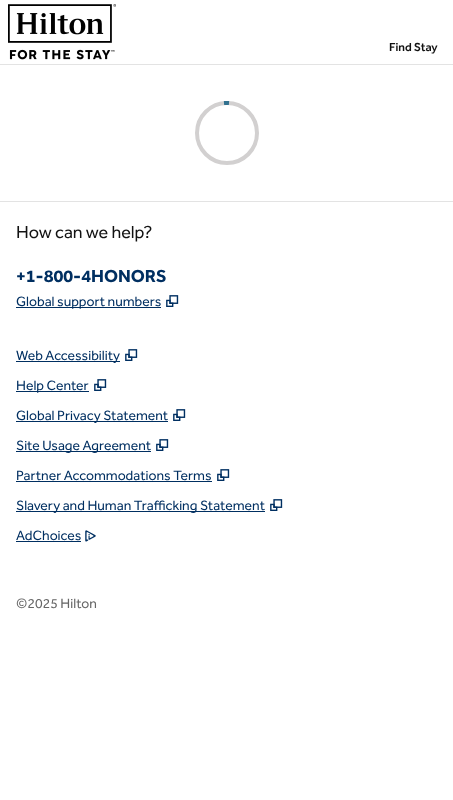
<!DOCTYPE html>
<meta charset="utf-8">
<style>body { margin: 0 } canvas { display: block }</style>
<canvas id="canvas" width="453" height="800"></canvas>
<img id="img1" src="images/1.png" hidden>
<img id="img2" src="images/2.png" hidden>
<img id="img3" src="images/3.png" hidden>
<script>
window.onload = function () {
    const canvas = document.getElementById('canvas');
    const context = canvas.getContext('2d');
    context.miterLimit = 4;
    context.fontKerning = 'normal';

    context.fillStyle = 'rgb(255, 255, 255)';
    context.fillRect(0, 0, 453, 800);
    context.fillStyle = 'rgb(227, 227, 227)';
    context.fillRect(0, 64, 453, 1);
    context.drawImage(document.getElementById('img1'), 8, 4, 108, 56);
    context.beginPath();
    context.arc(227, 133, 30, 0, 2 * Math.PI);
    context.strokeStyle = 'rgb(210, 208, 208)';
    context.lineWidth = 4;
    context.stroke();
    context.save();
    context.beginPath();
    context.rect(195, 101, 32, 64);
    context.clip();
    context.beginPath();
    context.moveTo(224, 103);
    context.bezierCurveTo(230, 102.5, 235.5, 104, 241, 106.5);
    context.bezierCurveTo(266.5, 121, 258.5, 160.5, 229, 163);
    context.strokeStyle = 'rgb(49, 113, 143)';
    context.stroke();
    context.restore();
    context.save();
    context.beginPath();
    context.rect(227, 101, 32, 64);
    context.clip();
    context.beginPath();
    context.moveTo(224, 163);
    context.bezierCurveTo(218, 162.5, 212.5, 160, 207.5, 156.5);
    context.bezierCurveTo(185, 138, 200, 100.5, 229, 103);
    context.strokeStyle = 'rgb(49, 113, 143)';
    context.stroke();
    context.restore();
    context.fillRect(0, 201, 453, 1);
    context.fillStyle = 'rgb(0, 47, 97)';
    context.fillRect(16, 307, 145, 1);
    context.drawImage(document.getElementById('img2'), 166, 295, 13, 12);
    context.fillRect(16, 361, 104, 1);
    context.drawImage(document.getElementById('img2'), 125, 349, 13, 12);
    context.fillRect(16, 391, 73, 1);
    context.drawImage(document.getElementById('img2'), 94, 379, 13, 12);
    context.fillRect(16, 421, 152, 1);
    context.drawImage(document.getElementById('img2'), 173, 409, 13, 12);
    context.fillRect(16, 451, 135, 1);
    context.drawImage(document.getElementById('img2'), 156, 439, 13, 12);
    context.fillRect(16, 481, 196, 1);
    context.drawImage(document.getElementById('img2'), 217, 469, 13, 12);
    context.fillRect(16, 511, 249, 1);
    context.drawImage(document.getElementById('img2'), 270, 499, 13, 12);
    context.fillRect(16, 541, 65, 1);
    context.drawImage(document.getElementById('img3'), 85, 530, 11, 12);
    context.font = '600 12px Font';
    context.fillStyle = 'rgb(18, 18, 18)';
    context.fillText('Find Stay', 389, 51);
    context.font = '18px Font';
    context.fillText('How can we help?', 16, 238);
    context.font = 'bold 18px Font';
    context.fillStyle = 'rgb(0, 47, 97)';
    context.fillText('+1-800-4HONORS', 16, 282);
    context.font = '14px Font';
    context.fillText('Global support numbers', 16, 306);
    context.fillText('Web Accessibility', 16, 360);
    context.fillText('Help Center', 16, 390);
    context.fillText('Global Privacy Statement', 16, 420);
    context.fillText('Site Usage Agreement', 16, 450);
    context.fillText('Partner Accommodations Terms', 16, 480);
    context.fillText('Slavery and Human Trafficking Statement', 16, 510);
    context.fillText('AdChoices', 16, 540);
    context.fillStyle = 'rgb(102, 102, 102)';
    context.fillText('©2025 Hilton', 16, 608);
};
</script>
